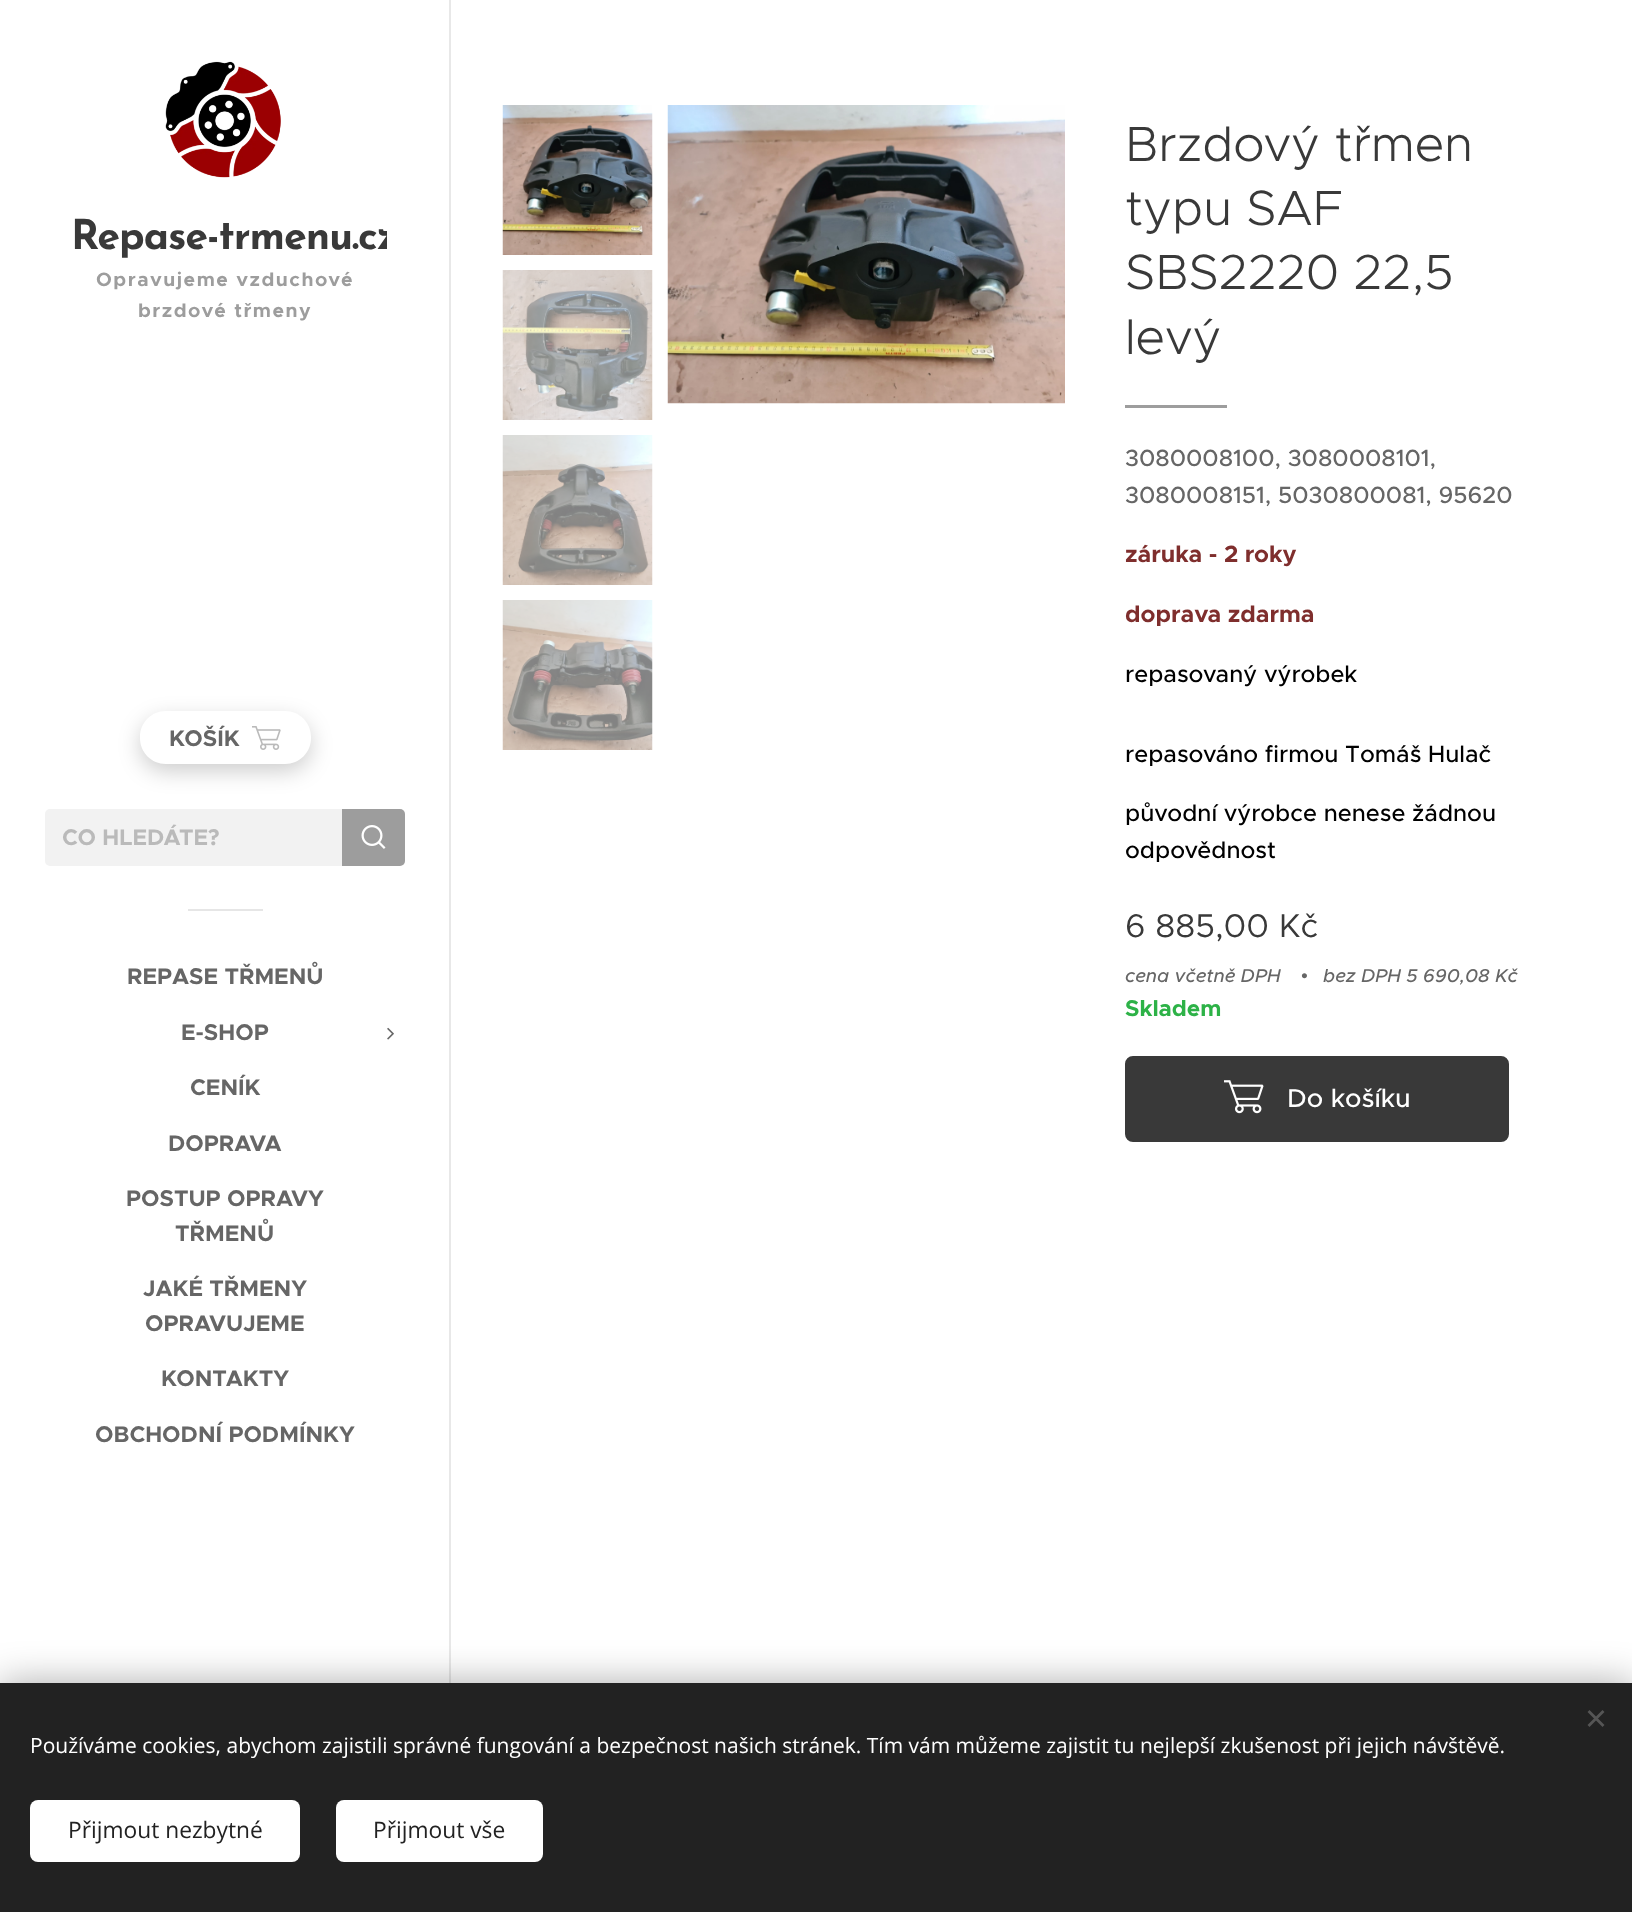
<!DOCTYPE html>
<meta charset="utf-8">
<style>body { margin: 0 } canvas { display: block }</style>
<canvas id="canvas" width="1632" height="1912"></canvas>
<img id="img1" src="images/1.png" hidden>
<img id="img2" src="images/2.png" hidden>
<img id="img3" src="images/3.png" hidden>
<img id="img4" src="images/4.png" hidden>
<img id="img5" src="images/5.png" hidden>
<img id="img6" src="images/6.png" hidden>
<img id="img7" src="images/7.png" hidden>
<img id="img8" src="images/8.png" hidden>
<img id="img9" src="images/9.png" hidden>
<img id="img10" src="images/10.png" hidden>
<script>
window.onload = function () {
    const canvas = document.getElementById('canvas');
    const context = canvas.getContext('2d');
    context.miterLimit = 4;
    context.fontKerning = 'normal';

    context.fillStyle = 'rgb(255, 255, 255)';
    context.fillRect(0, 0, 1632, 1912);
    context.drawImage(document.getElementById('img1'), 165, 61, 116, 117);
    context.save();
    context.beginPath();
    context.moveTo(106, 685);
    context.lineTo(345, 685);
    context.lineTo(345, 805);
    context.lineTo(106, 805);
    context.closePath();
    context.moveTo(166, 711);
    context.lineTo(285, 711);
    context.bezierCurveTo(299.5, 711, 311, 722.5, 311, 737);
    context.lineTo(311, 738);
    context.bezierCurveTo(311, 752.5, 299.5, 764, 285, 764);
    context.lineTo(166, 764);
    context.bezierCurveTo(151.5, 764, 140, 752.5, 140, 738);
    context.lineTo(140, 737);
    context.bezierCurveTo(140, 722.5, 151.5, 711, 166, 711);
    context.closePath();
    context.clip('evenodd');
    context.fillStyle = 'rgba(0, 0, 0, 0.2)';
    context.filter = 'blur(11px)';
    context.beginPath();
    context.roundRect(140, 719, 171, 52, 26);
    context.fill();
    context.filter = 'none';
    context.restore();
    context.fillStyle = 'rgba(255, 255, 255, 0.2)';
    context.beginPath();
    context.roundRect(140, 711, 171, 53, 26);
    context.fill();
    context.drawImage(document.getElementById('img2'), 252, 726, 29, 24);
    context.fillStyle = 'rgb(242, 242, 242)';
    context.beginPath();
    context.roundRect(45, 809, 297, 57, [5, 0, 0, 5]);
    context.fill();
    context.fillStyle = 'rgb(157, 157, 157)';
    context.beginPath();
    context.roundRect(342, 809, 63, 57, [0, 5, 5, 0]);
    context.fill();
    context.drawImage(document.getElementById('img3'), 361, 825, 25, 24);
    context.fillStyle = 'rgb(230, 230, 230)';
    context.fillRect(188, 909, 75, 2);
    context.drawImage(document.getElementById('img4'), 387, 1027, 7, 13);
    context.fillStyle = 'rgb(232, 232, 232)';
    context.fillRect(449, 0, 2, 1683);
    context.drawImage(document.getElementById('img5'), 502, 105, 151, 150);
    context.drawImage(document.getElementById('img6'), 502, 270, 151, 150);
    context.drawImage(document.getElementById('img7'), 502, 435, 151, 150);
    context.drawImage(document.getElementById('img8'), 502, 600, 151, 150);
    context.drawImage(document.getElementById('img9'), 667, 105, 398, 299);
    context.fillStyle = 'rgb(157, 157, 157)';
    context.fillRect(1125, 405, 102, 3);
    context.fillStyle = 'rgb(57, 57, 57)';
    context.beginPath();
    context.roundRect(1126, 1057, 382, 84, 7);
    context.fill();
    context.strokeStyle = 'rgb(57, 57, 57)';
    context.lineWidth = 2;
    context.stroke();
    context.drawImage(document.getElementById('img10'), 1224, 1080, 40, 34);
    context.fillStyle = 'rgba(0, 0, 0, 0.33)';
    context.filter = 'blur(19px)';
    context.beginPath();
    context.rect(0, 1683, 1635, 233);
    context.fill();
    context.filter = 'none';
    context.fillStyle = 'rgb(34, 34, 34)';
    context.fillRect(0, 1683, 1632, 229);
    context.fillStyle = 'rgb(85, 85, 85)';
    context.beginPath();
    context.moveTo(1587.5, 1725);
    context.lineTo(1602.5, 1710);
    context.lineTo(1604.5, 1712);
    context.lineTo(1589.5, 1727);
    context.closePath();
    context.fill();
    context.beginPath();
    context.moveTo(1589.5, 1710);
    context.lineTo(1604.5, 1725);
    context.lineTo(1602.5, 1727);
    context.lineTo(1587.5, 1712);
    context.closePath();
    context.fill();
    context.fillStyle = 'rgb(255, 255, 255)';
    context.beginPath();
    context.roundRect(30, 1800, 270, 62, 8);
    context.fill();
    context.beginPath();
    context.roundRect(336, 1800, 207, 62, 8);
    context.fill();
    context.save();
    context.beginPath();
    context.rect(63, 207, 324, 59);
    context.clip();
    context.letterSpacing = '-1.1px';
    context.font = 'bold 41.25px Josefin Sans';
    context.fillStyle = 'rgb(57, 57, 57)';
    context.fillText('Repase-trmenu.cz', 71, 249);
    context.restore();
    context.letterSpacing = '1.5px';
    context.font = 'bold 19.5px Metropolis';
    context.fillStyle = 'rgb(157, 157, 157)';
    context.fillText('Opravujeme vzduchové', 96, 286);
    context.fillText('brzdové třmeny', 138, 317);
    context.letterSpacing = '0px';
    context.font = 'bold 22.75px Metropolis';
    context.fillStyle = 'rgb(102, 102, 102)';
    context.fillText('KOŠÍK', 169, 746);
    context.fillStyle = 'rgb(186, 186, 186)';
    context.fillText('CO HLEDÁTE?', 62, 845);
    context.fillStyle = 'rgb(102, 102, 102)';
    context.fillText('REPASE TŘMENŮ', 127, 984);
    context.fillText('E-SHOP', 181, 1040);
    context.fillText('CENÍK', 190, 1095);
    context.fillText('DOPRAVA', 168, 1151);
    context.fillText('POSTUP OPRAVY', 126, 1206);
    context.fillText('TŘMENŮ', 175, 1241);
    context.fillText('JAKÉ TŘMENY', 143, 1296);
    context.fillText('OPRAVUJEME', 145, 1331);
    context.fillText('KONTAKTY', 161, 1386);
    context.fillText('OBCHODNÍ PODMÍNKY', 95, 1442);
    context.font = '300 49.5px Metropolis';
    context.fillStyle = 'rgb(57, 57, 57)';
    context.fillText('Brzdový třmen', 1125, 161);
    context.fillText('typu SAF', 1125, 225);
    context.fillText('SBS2220 22,5', 1125, 289);
    context.fillText('levý', 1125, 354);
    context.font = '500 23.5px Metropolis';
    context.fillStyle = 'rgb(102, 102, 102)';
    context.fillText('3080008100, 3080008101,', 1125, 466);
    context.fillText('3080008151, 5030800081, 95620', 1125, 503);
    context.font = 'bold 23.5px Metropolis';
    context.fillStyle = 'rgb(127, 46, 45)';
    context.fillText('záruka - 2 roky', 1125, 562);
    context.fillText('doprava zdarma', 1125, 622);
    context.font = '500 23.5px Metropolis';
    context.fillStyle = 'rgb(0, 0, 0)';
    context.fillText('repasovaný výrobek', 1125, 682);
    context.fillText('repasováno firmou Tomáš Hulač', 1125, 762);
    context.fillText('původní výrobce nenese žádnou', 1125, 821);
    context.fillText('odpovědnost', 1125, 858);
    context.font = '33px Metropolis';
    context.fillStyle = 'rgb(57, 57, 57)';
    context.fillText('6 885,00 Kč', 1125, 937);
    context.font = 'italic 500 18.75px Metropolis';
    context.fillStyle = 'rgb(102, 102, 102)';
    context.fillText('cena včetně DPH', 1125, 982);
    context.font = 'italic 18.75px Liberation Sans';
    context.fillText('•', 1301, 982);
    context.font = 'italic 500 18.75px Metropolis';
    context.fillText('bez DPH 5 690,08 Kč', 1323, 982);
    context.font = 'bold 22.75px Metropolis';
    context.fillStyle = 'rgb(45, 178, 71)';
    context.fillText('Skladem', 1125, 1016);
    context.font = '500 26px Metropolis';
    context.fillStyle = 'rgb(255, 255, 255)';
    context.fillText('Do košíku', 1287, 1107);
    context.font = '21px Open Sans';
    context.fillText('Používáme cookies, abychom zajistili správné fungování a bezpečnost našich stránek. Tím vám můžeme zajistit tu nejlepší zkušenost při jejich návštěvě.', 30, 1753);
    context.font = '22.75px Open Sans';
    context.fillStyle = 'rgb(34, 34, 34)';
    context.fillText('Přijmout nezbytné', 68, 1838);
    context.fillText('Přijmout vše', 373, 1838);
};
</script>
